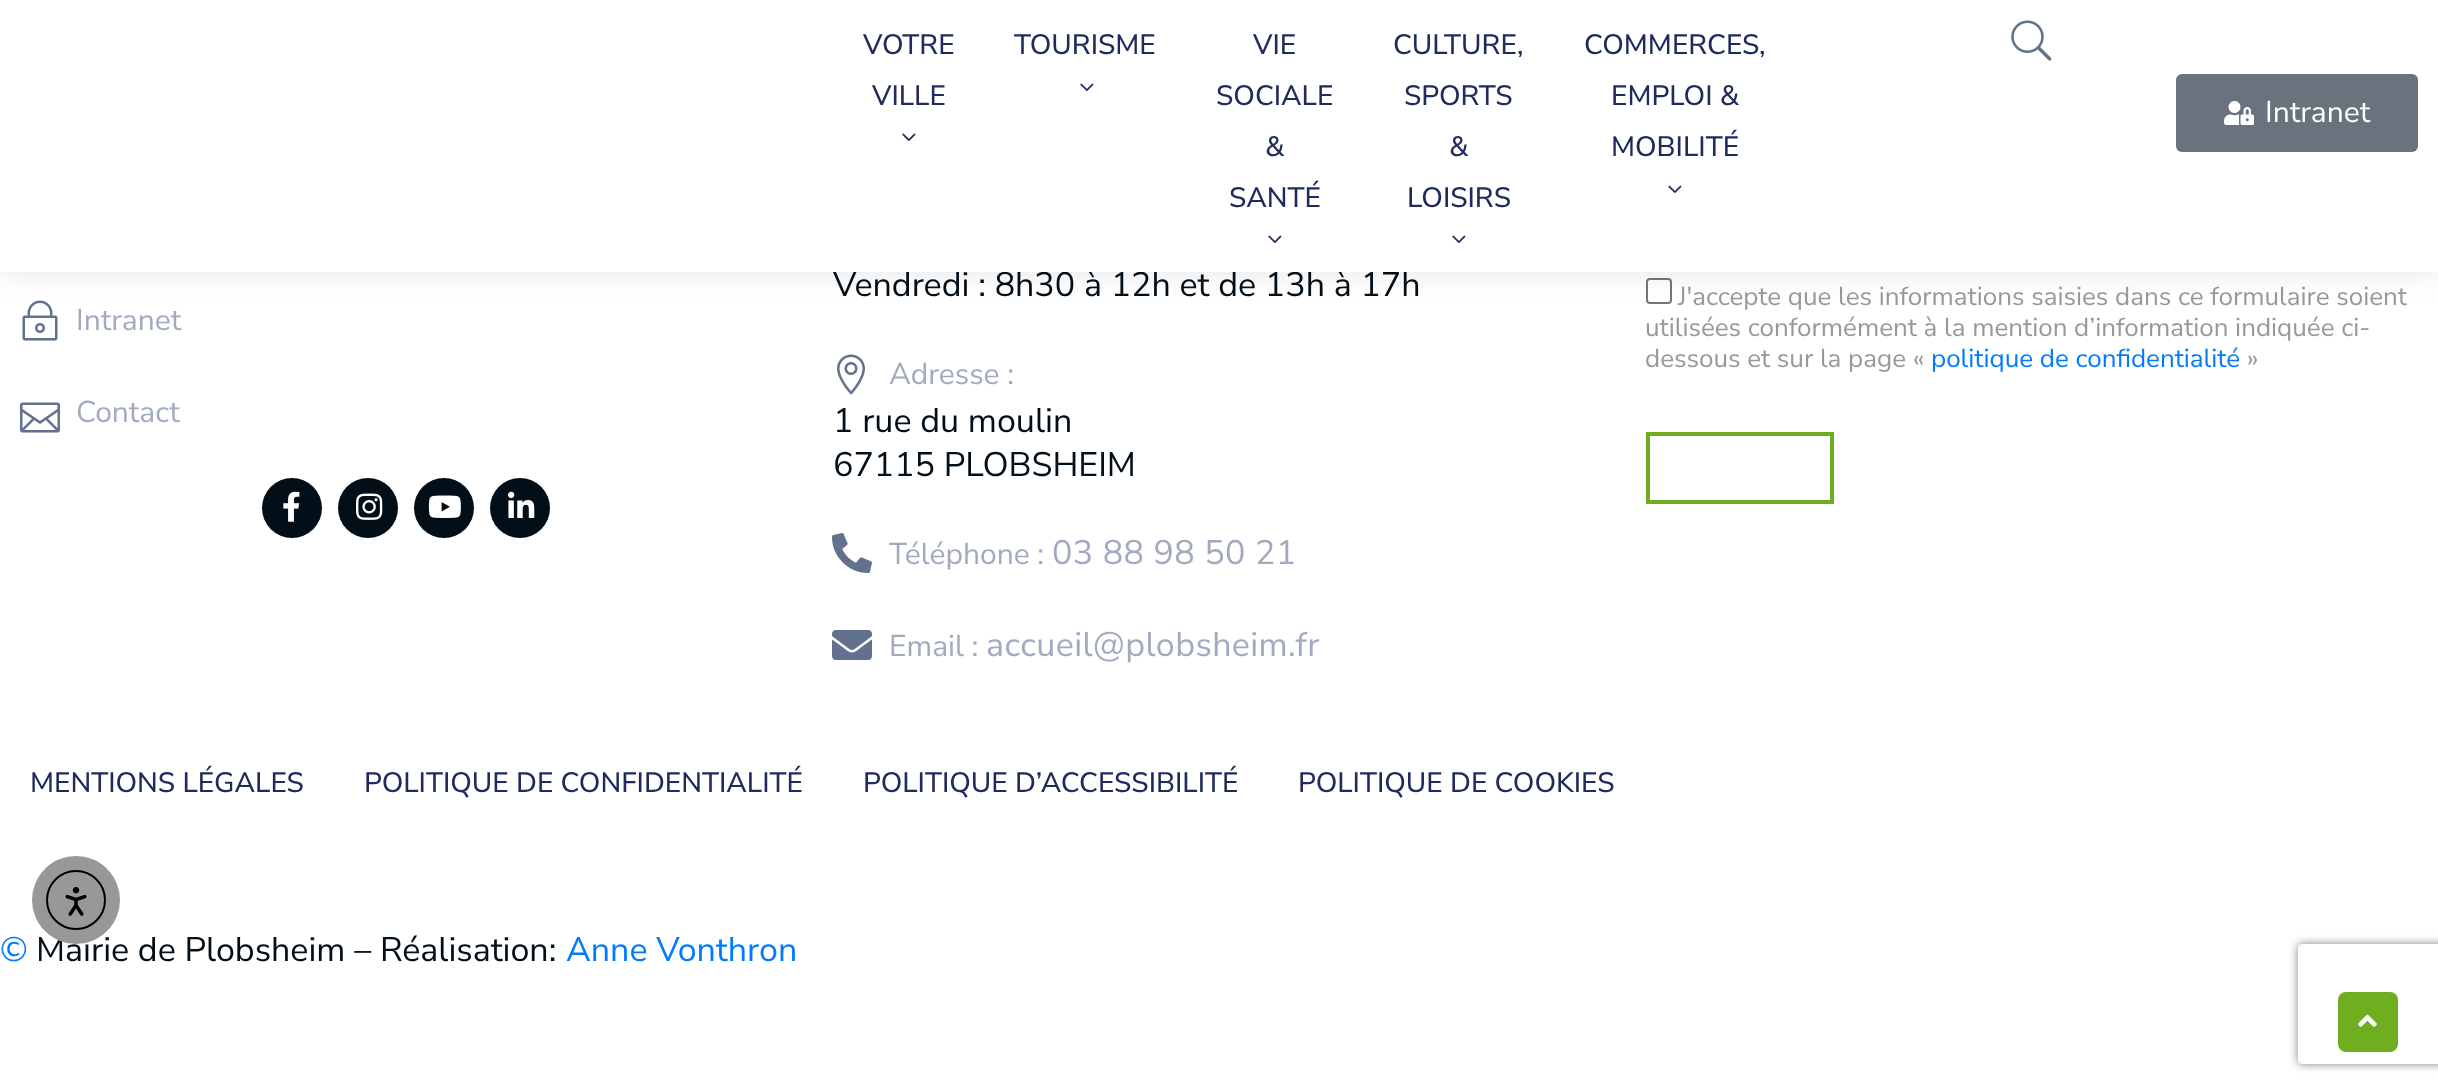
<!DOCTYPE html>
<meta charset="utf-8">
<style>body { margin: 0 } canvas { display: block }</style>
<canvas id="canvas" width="2438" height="1092"></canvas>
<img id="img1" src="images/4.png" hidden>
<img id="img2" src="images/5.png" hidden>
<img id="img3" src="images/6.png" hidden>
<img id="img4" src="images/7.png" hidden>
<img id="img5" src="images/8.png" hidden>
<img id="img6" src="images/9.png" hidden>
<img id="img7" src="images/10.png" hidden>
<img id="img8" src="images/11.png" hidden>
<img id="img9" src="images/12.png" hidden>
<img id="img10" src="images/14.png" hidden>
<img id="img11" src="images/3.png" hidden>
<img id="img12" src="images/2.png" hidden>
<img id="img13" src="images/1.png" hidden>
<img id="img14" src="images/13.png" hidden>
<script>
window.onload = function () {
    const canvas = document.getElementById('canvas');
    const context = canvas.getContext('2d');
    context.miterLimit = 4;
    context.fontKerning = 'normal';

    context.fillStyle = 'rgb(255, 255, 255)';
    context.fillRect(0, 0, 2438, 1092);
    context.drawImage(document.getElementById('img1'), 22, 300, 36, 41);
    context.beginPath();
    context.roundRect(1647, 279, 24, 24, 3);
    context.strokeStyle = 'rgb(118, 118, 118)';
    context.lineWidth = 2;
    context.stroke();
    context.fillStyle = 'rgba(0, 0, 0, 0.1)';
    context.filter = 'blur(15px)';
    context.beginPath();
    context.rect(0, 0, 2438, 272);
    context.fill();
    context.filter = 'none';
    context.drawImage(document.getElementById('img2'), 20, 402, 40, 31);
    context.fillStyle = 'rgb(2, 15, 25)';
    context.beginPath();
    context.arc(292, 508, 30, 0, 2 * Math.PI);
    context.fill();
    context.drawImage(document.getElementById('img3'), 283, 491, 17, 31);
    context.beginPath();
    context.arc(368, 508, 30, 0, 2 * Math.PI);
    context.fill();
    context.drawImage(document.getElementById('img4'), 356, 493, 27, 27);
    context.beginPath();
    context.arc(444, 508, 30, 0, 2 * Math.PI);
    context.fill();
    context.drawImage(document.getElementById('img5'), 428, 495, 33, 23);
    context.beginPath();
    context.arc(520, 508, 30, 0, 2 * Math.PI);
    context.fill();
    context.drawImage(document.getElementById('img6'), 508, 491, 27, 27);
    context.drawImage(document.getElementById('img7'), 837, 354, 28, 41);
    context.drawImage(document.getElementById('img8'), 832, 533, 40, 40);
    context.drawImage(document.getElementById('img9'), 832, 630, 40, 30);
    context.strokeStyle = 'rgb(111, 174, 31)';
    context.lineWidth = 4;
    context.strokeRect(1648, 434, 184, 68);
    context.save();
    context.beginPath();
    context.moveTo(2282, 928);
    context.lineTo(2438, 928);
    context.lineTo(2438, 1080);
    context.lineTo(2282, 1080);
    context.closePath();
    context.moveTo(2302, 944);
    context.lineTo(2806, 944);
    context.bezierCurveTo(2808, 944, 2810, 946, 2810, 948);
    context.lineTo(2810, 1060);
    context.bezierCurveTo(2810, 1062, 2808, 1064, 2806, 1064);
    context.lineTo(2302, 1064);
    context.bezierCurveTo(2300, 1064, 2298, 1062, 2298, 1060);
    context.lineTo(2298, 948);
    context.bezierCurveTo(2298, 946, 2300, 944, 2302, 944);
    context.closePath();
    context.clip('evenodd');
    context.fillStyle = 'rgb(128, 128, 128)';
    context.filter = 'blur(5px)';
    context.beginPath();
    context.roundRect(2298, 944, 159, 120, 4);
    context.fill();
    context.filter = 'none';
    context.restore();
    context.fillStyle = 'rgb(111, 174, 31)';
    context.beginPath();
    context.roundRect(2338, 992, 60, 60, 8);
    context.fill();
    context.drawImage(document.getElementById('img10'), 2358, 1014, 19, 13);
    context.font = '30px Nunito Sans';
    context.fillStyle = 'rgb(161, 170, 191)';
    context.fillText('Intranet', 76, 330);
    context.fillText('Contact', 76, 422);
    context.font = '34px Nunito Sans';
    context.fillStyle = 'rgb(2, 15, 25)';
    context.fillText('Vendredi : 8h30 à 12h et de 13h à 17h', 833, 296);
    context.fillStyle = 'rgb(255, 255, 255)';
    context.fillRect(0, 0, 2438, 272);
    context.fillStyle = 'rgb(105, 114, 125)';
    context.beginPath();
    context.roundRect(2176, 74, 242, 78, 6);
    context.fill();
    context.drawImage(document.getElementById('img11'), 2224, 101, 30, 24);
    context.font = '30px Nunito Sans';
    context.fillStyle = 'rgb(255, 255, 255)';
    context.fillText('Intranet', 2265, 122);
    context.drawImage(document.getElementById('img12'), 2011, 20, 41, 41);
    context.drawImage(document.getElementById('img13'), 1668, 185, 14, 8);
    context.font = '500 28px Nunito Sans';
    context.fillStyle = 'rgb(32, 43, 93)';
    context.fillText('MOBILITÉ', 1611, 156);
    context.fillText('EMPLOI &', 1611, 105);
    context.fillText('COMMERCES,', 1584, 54);
    context.drawImage(document.getElementById('img13'), 1452, 235, 14, 8);
    context.fillText('LOISIRS', 1407, 207);
    context.fillText('&', 1449, 156);
    context.fillText('SPORTS', 1404, 105);
    context.fillText('CULTURE,', 1393, 54);
    context.drawImage(document.getElementById('img13'), 1268, 235, 14, 8);
    context.fillText('SANTÉ', 1229, 207);
    context.fillText('&', 1265, 156);
    context.fillText('SOCIALE', 1216, 105);
    context.fillText('VIE', 1253, 54);
    context.drawImage(document.getElementById('img13'), 1080, 83, 14, 8);
    context.fillText('TOURISME', 1014, 54);
    context.drawImage(document.getElementById('img13'), 902, 133, 14, 8);
    context.fillText('VILLE', 872, 105);
    context.fillText('VOTRE', 863, 54);
    context.font = '30px Nunito Sans';
    context.fillStyle = 'rgb(161, 170, 191)';
    context.fillText('Adresse :', 889, 384);
    context.font = '34px Nunito Sans';
    context.fillStyle = 'rgb(2, 15, 25)';
    context.fillText('1 rue du moulin', 833, 432);
    context.fillText('67115 PLOBSHEIM', 833, 476);
    context.font = '30px Nunito Sans';
    context.fillStyle = 'rgb(161, 170, 191)';
    context.fillText('Téléphone :', 889, 564);
    context.letterSpacing = '0.4px';
    context.font = '34px Nunito Sans';
    context.fillText('03 88 98 50 21', 1052, 564);
    context.letterSpacing = '0px';
    context.font = '30px Nunito Sans';
    context.fillText('Email :', 889, 656);
    context.letterSpacing = '0.4px';
    context.font = '34px Nunito Sans';
    context.fillText('accueil@plobsheim.fr', 986, 656);
    context.letterSpacing = '0px';
    context.font = '26px Nunito Sans';
    context.fillStyle = 'rgb(152, 152, 152)';
    context.fillText('J\'accepte que les informations saisies dans ce formulaire soient', 1678, 305);
    context.fillText('utilisées conformément à la mention d’information indiquée ci-', 1645, 336);
    context.fillText('dessous et sur la page «', 1645, 367);
    context.fillStyle = 'rgb(0, 123, 255)';
    context.fillText('politique de confidentialité', 1931, 367);
    context.fillStyle = 'rgb(152, 152, 152)';
    context.fillText('»', 2247, 367);
    context.font = '500 28px Nunito Sans';
    context.fillStyle = 'rgb(32, 43, 93)';
    context.fillText('MENTIONS LÉGALES', 30, 792);
    context.fillText('POLITIQUE DE CONFIDENTIALITÉ', 364, 792);
    context.fillText('POLITIQUE D’ACCESSIBILITÉ', 863, 792);
    context.fillText('POLITIQUE DE COOKIES', 1298, 792);
    context.font = '34px Nunito Sans';
    context.fillStyle = 'rgb(0, 123, 255)';
    context.fillText('©', 0, 961);
    context.fillStyle = 'rgb(2, 15, 25)';
    context.fillText('Mairie de Plobsheim – Réalisation:', 36, 961);
    context.fillStyle = 'rgb(0, 123, 255)';
    context.fillText('Anne Vonthron', 566, 961);
    context.fillStyle = 'rgb(152, 152, 152)';
    context.beginPath();
    context.arc(76, 900, 44, 0, 2 * Math.PI);
    context.fill();
    context.beginPath();
    context.arc(76, 900, 29, 0, 2 * Math.PI);
    context.strokeStyle = 'rgb(0, 0, 0)';
    context.lineWidth = 2;
    context.stroke();
    context.drawImage(document.getElementById('img14'), 65, 887, 22, 29);
};
</script>
